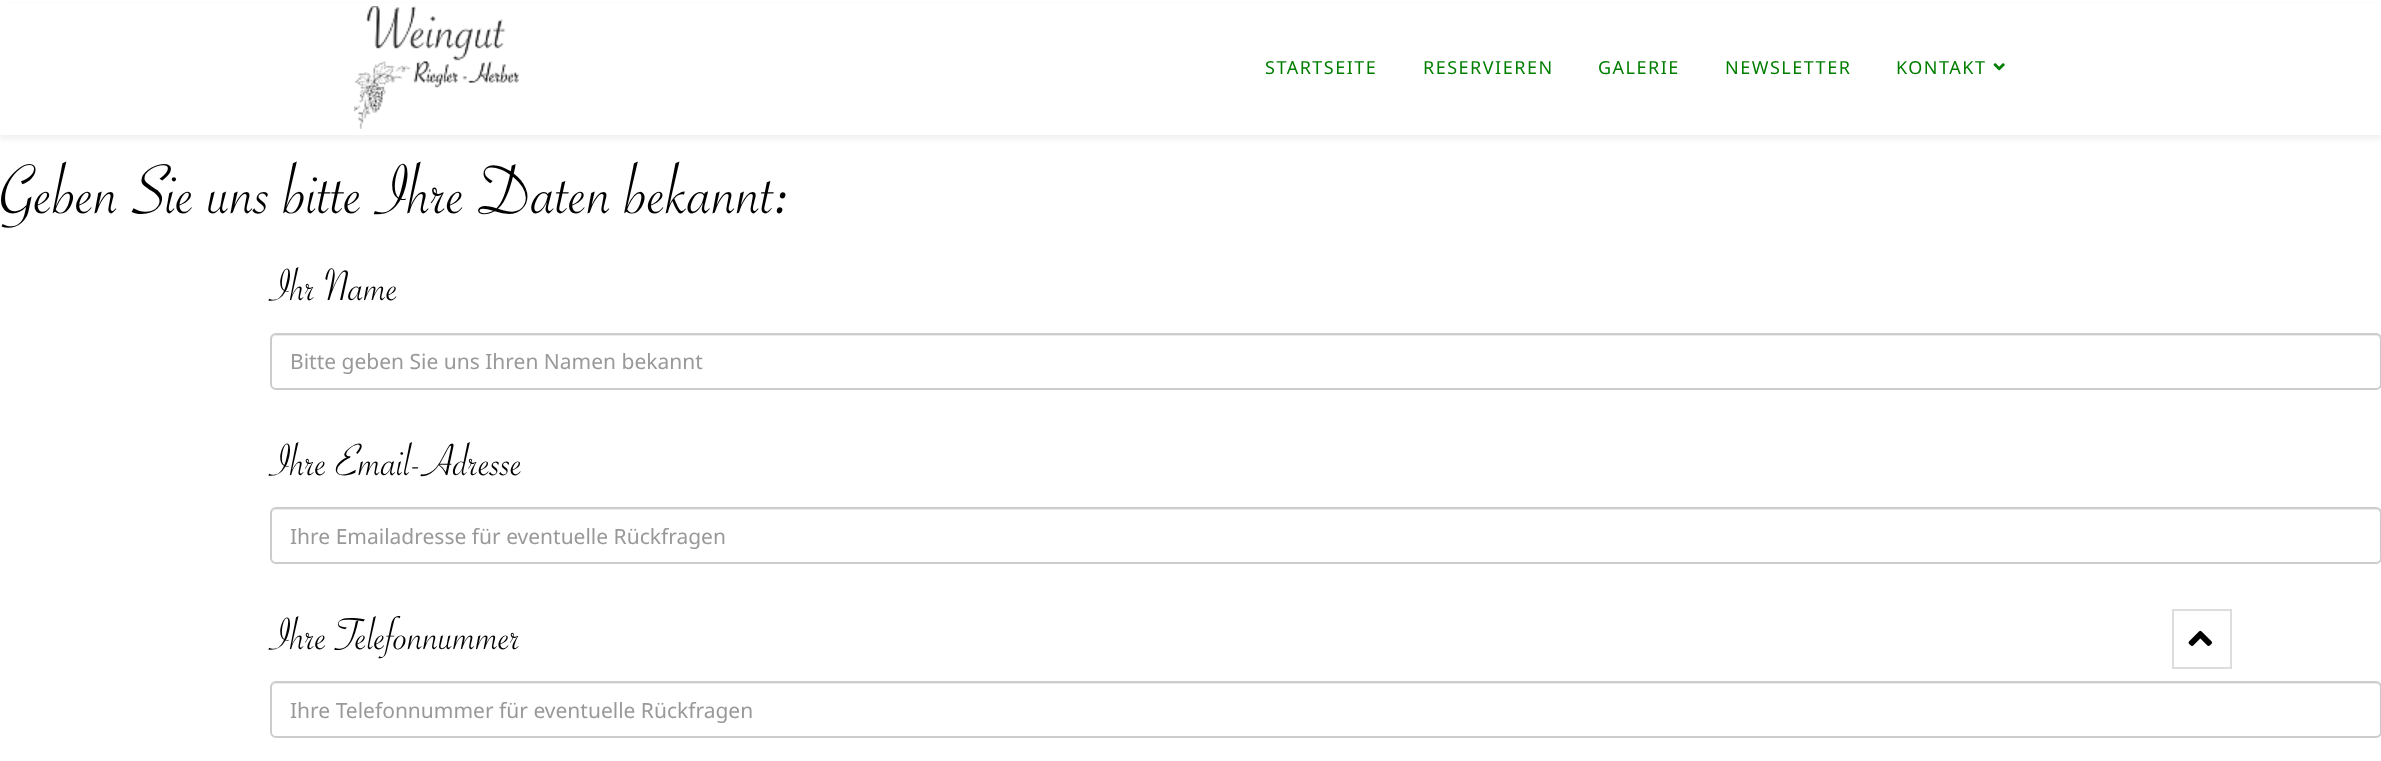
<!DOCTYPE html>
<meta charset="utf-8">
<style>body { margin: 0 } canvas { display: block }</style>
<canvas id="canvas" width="2381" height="761"></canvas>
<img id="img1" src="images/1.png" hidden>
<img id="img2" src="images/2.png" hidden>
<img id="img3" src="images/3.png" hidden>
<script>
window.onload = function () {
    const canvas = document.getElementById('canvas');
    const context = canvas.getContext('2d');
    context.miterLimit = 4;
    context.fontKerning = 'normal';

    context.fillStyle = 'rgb(255, 255, 255)';
    context.fillRect(0, 0, 2381, 761);
    context.fillStyle = 'rgba(0, 0, 0, 0.05)';
    context.filter = 'blur(2px)';
    context.beginPath();
    context.rect(0, 5, 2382, 135);
    context.fill();
    context.filter = 'none';
    context.fillStyle = 'rgb(255, 255, 255)';
    context.fillRect(0, 3, 2381, 132);
    context.drawImage(document.getElementById('img1'), 354, 6, 165, 123);
    context.drawImage(document.getElementById('img2'), 1993, 63, 12, 8);
    context.fillStyle = 'rgb(236, 236, 236)';
    context.beginPath();
    context.moveTo(276, 336);
    context.lineTo(2376, 336);
    context.bezierCurveTo(2378, 336, 2380, 338, 2380, 340);
    context.lineTo(2380, 387);
    context.bezierCurveTo(2381, 386, 2381, 385, 2381, 384);
    context.lineTo(2381, 340);
    context.bezierCurveTo(2381, 337, 2379, 335, 2376, 335);
    context.lineTo(277, 335);
    context.bezierCurveTo(274, 335, 272, 337, 272, 340);
    context.bezierCurveTo(272, 338, 274, 336, 276, 336);
    context.closePath();
    context.fill();
    context.beginPath();
    context.roundRect(271, 334, 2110, 55, 5);
    context.strokeStyle = 'rgb(204, 204, 204)';
    context.lineWidth = 2;
    context.stroke();
    context.beginPath();
    context.moveTo(276, 510);
    context.lineTo(2376, 510);
    context.bezierCurveTo(2378, 510, 2380, 512, 2380, 514);
    context.lineTo(2380, 561);
    context.bezierCurveTo(2381, 560, 2381, 559, 2381, 558);
    context.lineTo(2381, 514);
    context.bezierCurveTo(2381, 511, 2379, 509, 2376, 509);
    context.lineTo(277, 509);
    context.bezierCurveTo(274, 509, 272, 511, 272, 514);
    context.bezierCurveTo(272, 512, 274, 510, 276, 510);
    context.closePath();
    context.fill();
    context.beginPath();
    context.roundRect(271, 508, 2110, 55, 5);
    context.stroke();
    context.beginPath();
    context.moveTo(276, 684);
    context.lineTo(2376, 684);
    context.bezierCurveTo(2378, 684, 2380, 686, 2380, 688);
    context.lineTo(2380, 735);
    context.bezierCurveTo(2381, 734, 2381, 733, 2381, 732);
    context.lineTo(2381, 688);
    context.bezierCurveTo(2381, 685, 2379, 683, 2376, 683);
    context.lineTo(277, 683);
    context.bezierCurveTo(274, 683, 272, 685, 272, 688);
    context.bezierCurveTo(272, 686, 274, 684, 276, 684);
    context.closePath();
    context.fill();
    context.beginPath();
    context.roundRect(271, 682, 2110, 55, 5);
    context.stroke();
    context.strokeStyle = 'rgb(221, 221, 221)';
    context.strokeRect(2173, 610, 58, 58);
    context.drawImage(document.getElementById('img3'), 2188, 630, 24, 16);
    context.letterSpacing = '1.5px';
    context.font = '18px Noto Sans';
    context.fillStyle = 'rgb(0, 126, 0)';
    context.fillText('STARTSEITE', 1265, 74);
    context.fillText('RESERVIEREN', 1423, 74);
    context.fillText('GALERIE', 1598, 74);
    context.fillText('NEWSLETTER', 1725, 74);
    context.fillText('KONTAKT', 1896, 74);
    context.letterSpacing = '0px';
    context.font = '75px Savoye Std';
    context.fillStyle = 'rgb(0, 0, 0)';
    context.fillText('Geben Sie uns bitte Ihre Daten bekannt:', 0, 213);
    context.font = '48px Savoye Std';
    context.fillText('Ihr Name', 270, 300);
    context.font = '21px Noto Sans';
    context.fillStyle = 'rgb(153, 153, 153)';
    context.fillText('Bitte geben Sie uns Ihren Namen bekannt', 290, 369);
    context.font = '48px Savoye Std';
    context.fillStyle = 'rgb(0, 0, 0)';
    context.fillText('Ihre Email-Adresse', 270, 475);
    context.font = '21px Noto Sans';
    context.fillStyle = 'rgb(153, 153, 153)';
    context.fillText('Ihre Emailadresse für eventuelle Rückfragen', 290, 544);
    context.font = '48px Savoye Std';
    context.fillStyle = 'rgb(0, 0, 0)';
    context.fillText('Ihre Telefonnummer', 270, 649);
    context.font = '21px Noto Sans';
    context.fillStyle = 'rgb(153, 153, 153)';
    context.fillText('Ihre Telefonnummer für eventuelle Rückfragen', 290, 718);
};
</script>
